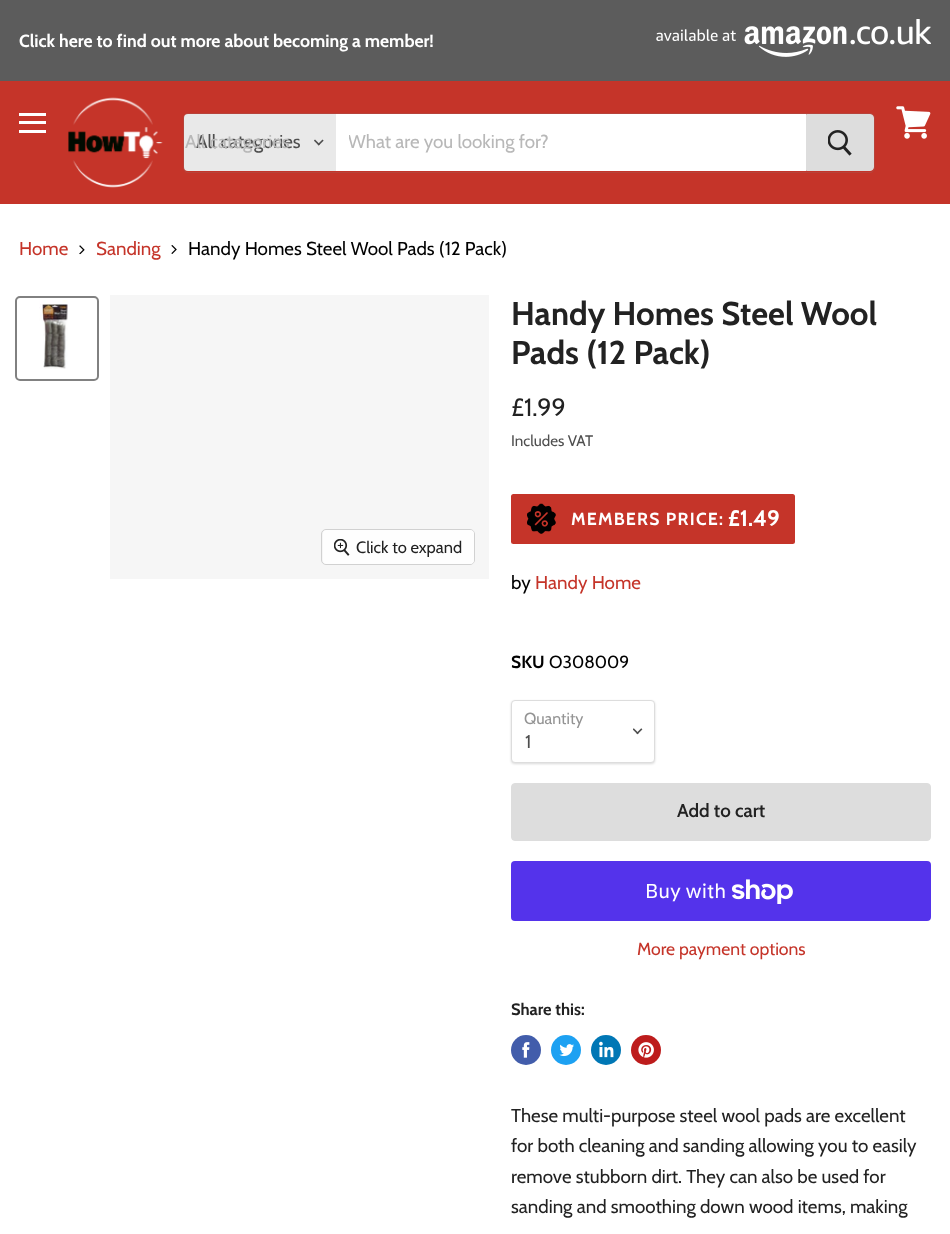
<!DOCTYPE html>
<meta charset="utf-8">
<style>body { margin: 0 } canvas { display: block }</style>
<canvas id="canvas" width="950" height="1234"></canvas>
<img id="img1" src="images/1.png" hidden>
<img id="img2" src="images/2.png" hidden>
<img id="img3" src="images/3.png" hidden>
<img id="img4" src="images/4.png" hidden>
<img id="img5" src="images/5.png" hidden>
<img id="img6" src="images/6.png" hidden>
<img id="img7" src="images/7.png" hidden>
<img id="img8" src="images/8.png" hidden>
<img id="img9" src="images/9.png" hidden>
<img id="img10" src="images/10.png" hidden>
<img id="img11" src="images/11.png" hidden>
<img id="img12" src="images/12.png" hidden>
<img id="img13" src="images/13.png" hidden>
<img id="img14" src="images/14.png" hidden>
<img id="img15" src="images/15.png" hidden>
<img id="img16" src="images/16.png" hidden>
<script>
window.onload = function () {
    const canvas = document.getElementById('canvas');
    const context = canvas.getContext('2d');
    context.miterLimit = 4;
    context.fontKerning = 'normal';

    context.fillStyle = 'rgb(255, 255, 255)';
    context.fillRect(0, 0, 950, 1234);
    context.fillStyle = 'rgb(92, 92, 92)';
    context.fillRect(0, 0, 950, 81);
    context.drawImage(document.getElementById('img1'), 656, 19, 275, 38);
    context.fillStyle = 'rgb(197, 52, 41)';
    context.fillRect(0, 81, 950, 123);
    context.fillStyle = 'rgb(255, 255, 255)';
    context.fillRect(19, 113, 27, 3);
    context.fillRect(19, 121, 27, 3);
    context.fillRect(19, 130, 27, 3);
    context.drawImage(document.getElementById('img2'), 896, 106, 35, 33);
    context.drawImage(document.getElementById('img3'), 68, 97, 95, 91);
    context.beginPath();
    context.roundRect(183.5, 113.5, 691, 59, 4.5);
    context.strokeStyle = 'rgba(128, 128, 128, 0.2)';
    context.stroke();
    context.fillStyle = 'rgb(233, 233, 233)';
    context.beginPath();
    context.roundRect(184, 114, 152, 57, [4, 0, 0, 4]);
    context.fill();
    context.drawImage(document.getElementById('img4'), 314, 139, 10, 7);
    context.fillStyle = 'rgb(255, 255, 255)';
    context.fillRect(336, 114, 470, 57);
    context.fillStyle = 'rgb(221, 221, 221)';
    context.beginPath();
    context.roundRect(806.5, 114.5, 67, 56, [0, 3.5, 3.5, 0]);
    context.fill();
    context.strokeStyle = 'rgb(221, 221, 221)';
    context.stroke();
    context.drawImage(document.getElementById('img5'), 828, 130, 24, 26);
    context.drawImage(document.getElementById('img6'), 79, 245, 6, 10);
    context.drawImage(document.getElementById('img7'), 171, 245, 6, 9);
    context.beginPath();
    context.roundRect(16, 297, 82, 83, 4);
    context.strokeStyle = 'rgb(129, 129, 129)';
    context.lineWidth = 2;
    context.stroke();
    context.drawImage(document.getElementById('img8'), 39, 300, 29, 69);
    context.fillStyle = 'rgb(246, 246, 246)';
    context.fillRect(110, 295, 379, 284);
    context.beginPath();
    context.roundRect(321.5, 529.5, 153, 35, 4.5);
    context.strokeStyle = 'rgb(209, 209, 209)';
    context.lineWidth = 1;
    context.stroke();
    context.fillStyle = 'rgba(255, 255, 255, 0.9)';
    context.beginPath();
    context.roundRect(323, 530, 151, 34, 4);
    context.fill();
    context.drawImage(document.getElementById('img9'), 334, 539, 16, 17);
    context.fillStyle = 'rgb(197, 52, 41)';
    context.beginPath();
    context.roundRect(511, 494, 284, 50, 2.5);
    context.fill();
    context.drawImage(document.getElementById('img10'), 527, 503, 29, 31);
    context.fillStyle = 'rgba(0, 0, 0, 0.15)';
    context.filter = 'blur(1px)';
    context.beginPath();
    context.roundRect(511, 701, 144, 63, 4);
    context.fill();
    context.filter = 'none';
    context.fillStyle = 'rgb(255, 255, 255)';
    context.beginPath();
    context.roundRect(511.5, 700.5, 143, 62, 3.5);
    context.fill();
    context.strokeStyle = 'rgb(221, 221, 221)';
    context.stroke();
    context.drawImage(document.getElementById('img11'), 633, 728, 10, 7);
    context.fillStyle = 'rgb(221, 221, 221)';
    context.beginPath();
    context.roundRect(511.5, 783.5, 419, 57, 3.5);
    context.fill();
    context.stroke();
    context.fillStyle = 'rgb(84, 51, 235)';
    context.beginPath();
    context.roundRect(511, 861, 420, 60, 4);
    context.fill();
    context.drawImage(document.getElementById('img12'), 731, 879, 62, 25);
    context.fillStyle = 'rgb(66, 93, 171)';
    context.beginPath();
    context.arc(526, 1050, 15, 0, 2 * Math.PI);
    context.fill();
    context.drawImage(document.getElementById('img13'), 522, 1042, 8, 16);
    context.fillStyle = 'rgb(29, 161, 242)';
    context.beginPath();
    context.arc(566, 1050, 15, 0, 2 * Math.PI);
    context.fill();
    context.drawImage(document.getElementById('img14'), 559, 1044, 15, 13);
    context.fillStyle = 'rgb(0, 119, 181)';
    context.beginPath();
    context.arc(606, 1050, 15, 0, 2 * Math.PI);
    context.fill();
    context.drawImage(document.getElementById('img15'), 599, 1041, 15, 17);
    context.fillStyle = 'rgb(189, 28, 28)';
    context.beginPath();
    context.arc(646, 1050, 15, 0, 2 * Math.PI);
    context.fill();
    context.drawImage(document.getElementById('img16'), 638, 1042, 16, 16);
    context.font = 'bold 17.6px Cabin';
    context.fillStyle = 'rgb(255, 255, 255)';
    context.fillText('Click here to find out more about becoming a member!', 19, 47);
    context.font = '18.75px Cabin';
    context.fillStyle = 'rgb(78, 78, 78)';
    context.fillText('All categories', 196, 148);
    context.fillStyle = 'rgb(184, 184, 184)';
    context.fillText('All categories', 185, 148);
    context.save();
    context.beginPath();
    context.rect(349, 130, 445, 23);
    context.clip();
    context.fillText('What are you looking for?', 348, 148);
    context.restore();
    context.fillStyle = 'rgb(197, 52, 41)';
    context.fillText('Home', 19, 255);
    context.fillText('Sanding', 96, 255);
    context.fillStyle = 'rgb(0, 0, 0)';
    context.fillText('Handy Homes Steel Wool Pads (12 Pack)', 188, 255);
    context.font = '16.5px Cabin';
    context.fillStyle = 'rgb(34, 34, 34)';
    context.fillText('Click to expand', 356, 553);
    context.font = 'bold 32.75px Cabin';
    context.fillText('Handy Homes Steel Wool', 511, 325);
    context.fillText('Pads (12 Pack)', 511, 364);
    context.font = '25px Cabin';
    context.fillText('£1.99', 511, 416);
    context.font = '15.25px Cabin';
    context.fillStyle = 'rgb(78, 78, 78)';
    context.fillText('Includes VAT', 511, 446);
    context.letterSpacing = '1.25px';
    context.font = 'bold 17.5px Cabin';
    context.fillStyle = 'rgb(255, 255, 255)';
    context.fillText('MEMBERS PRICE:', 571, 525);
    context.letterSpacing = '0px';
    context.font = 'bold 22.5px Cabin';
    context.fillText('£1.49', 728, 526);
    context.font = '18.75px Cabin';
    context.fillStyle = 'rgb(0, 0, 0)';
    context.fillText('by', 511, 589);
    context.fillStyle = 'rgb(197, 52, 41)';
    context.fillText('Handy Home', 535, 589);
    context.font = 'bold 17.5px Cabin';
    context.fillStyle = 'rgb(0, 0, 0)';
    context.fillText('SKU', 511, 668);
    context.font = '17.5px Cabin';
    context.fillText('O308009', 549, 668);
    context.font = '16px Cabin';
    context.fillStyle = 'rgb(148, 148, 148)';
    context.fillText('Quantity', 524, 724);
    context.font = '18.75px Cabin';
    context.fillStyle = 'rgb(78, 78, 78)';
    context.fillText('1', 525, 748);
    context.font = '600 18.75px Cabin';
    context.fillStyle = 'rgb(34, 34, 34)';
    context.fillText('Add to cart', 677, 817);
    context.font = '20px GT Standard';
    context.fillStyle = 'rgb(255, 255, 255)';
    context.fillText('Buy with', 645, 898);
    context.font = '17.6px Cabin';
    context.fillStyle = 'rgb(197, 52, 41)';
    context.fillText('More payment options', 637, 955);
    context.font = 'bold 16.5px Cabin';
    context.fillStyle = 'rgb(34, 34, 34)';
    context.fillText('Share this:', 511, 1015);
    context.font = '18.75px Cabin';
    context.fillText('These multi-purpose steel wool pads are excellent', 511, 1122);
    context.fillText('for both cleaning and sanding allowing you to easily', 511, 1152);
    context.fillText('remove stubborn dirt. They can also be used for', 511, 1183);
    context.fillText('sanding and smoothing down wood items, making', 511, 1213);
};
</script>
